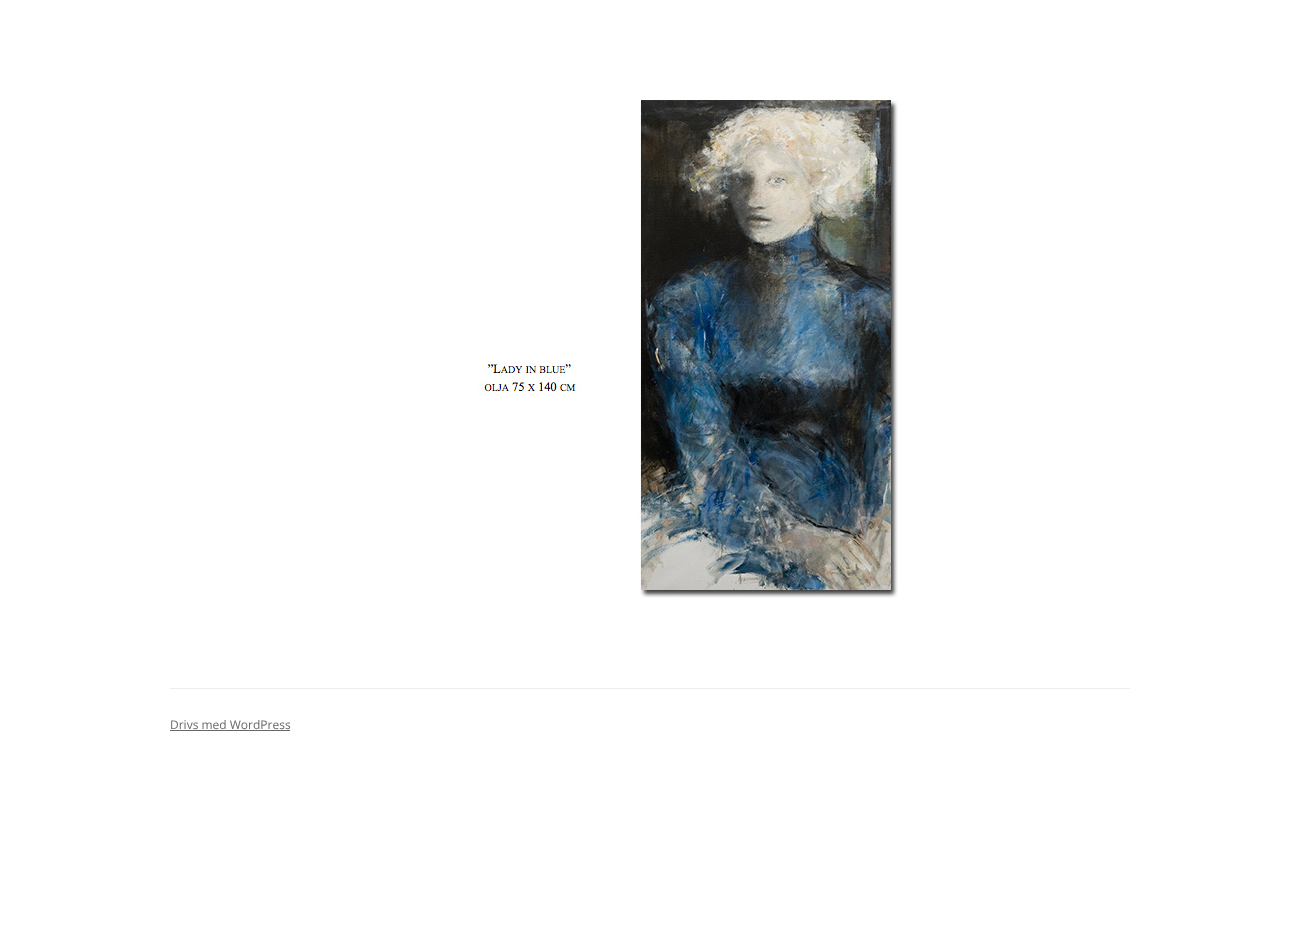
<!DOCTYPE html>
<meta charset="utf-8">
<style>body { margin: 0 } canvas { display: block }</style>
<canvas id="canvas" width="1299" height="941"></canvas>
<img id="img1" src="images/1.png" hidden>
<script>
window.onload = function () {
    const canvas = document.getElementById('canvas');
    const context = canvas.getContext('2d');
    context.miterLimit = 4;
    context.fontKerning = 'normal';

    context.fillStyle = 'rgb(255, 255, 255)';
    context.fillRect(0, 0, 1299, 941);
    context.drawImage(document.getElementById('img1'), 478, 98, 420, 500);
    context.fillStyle = 'rgb(237, 237, 237)';
    context.fillRect(170, 688, 960, 1);
    context.fillStyle = 'rgb(104, 104, 104)';
    context.fillRect(170, 730, 120, 1);
    context.font = '12px Open Sans';
    context.fillText('Drivs med WordPress', 170, 729);
};
</script>
